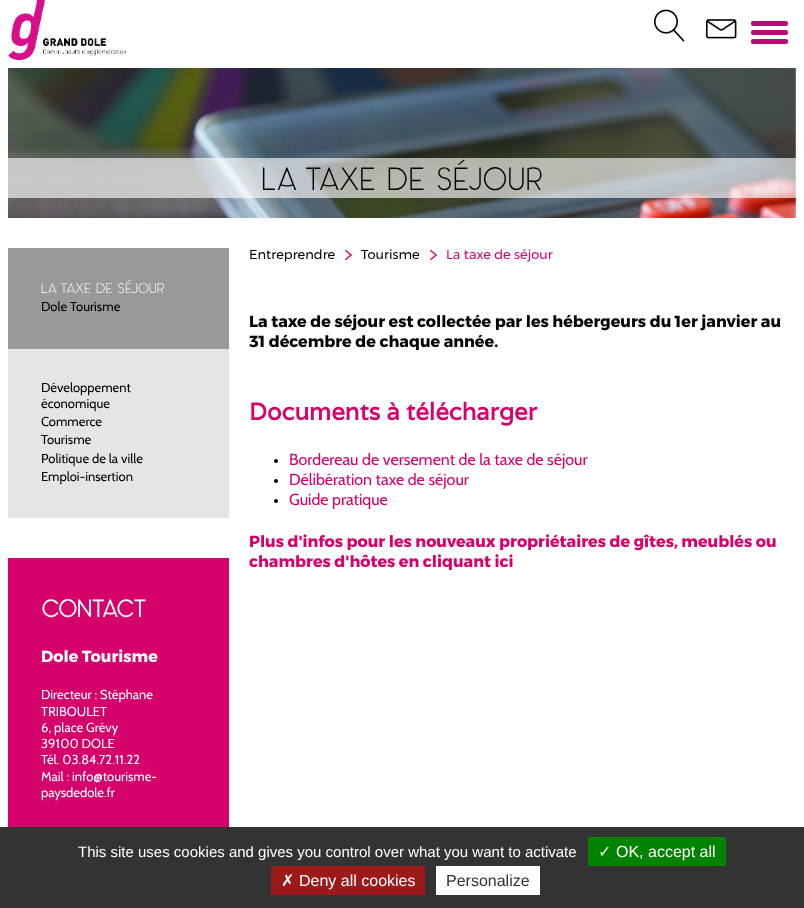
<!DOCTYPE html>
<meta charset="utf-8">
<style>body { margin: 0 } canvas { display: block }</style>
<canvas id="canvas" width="804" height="908"></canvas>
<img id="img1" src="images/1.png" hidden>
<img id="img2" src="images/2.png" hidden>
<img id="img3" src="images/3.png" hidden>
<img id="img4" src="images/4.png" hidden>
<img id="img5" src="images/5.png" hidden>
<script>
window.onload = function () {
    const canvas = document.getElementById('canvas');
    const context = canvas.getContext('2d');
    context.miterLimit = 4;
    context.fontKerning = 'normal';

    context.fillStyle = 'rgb(255, 255, 255)';
    context.fillRect(0, 0, 804, 908);
    context.drawImage(document.getElementById('img1'), 8, 0, 118, 60);
    context.drawImage(document.getElementById('img2'), 654, 9, 31, 33);
    context.drawImage(document.getElementById('img3'), 706, 19, 31, 20);
    context.fillStyle = 'rgb(186, 10, 119)';
    context.beginPath();
    context.roundRect(751, 30, 37, 5, 2);
    context.fill();
    context.beginPath();
    context.roundRect(751, 21, 37, 5, 2);
    context.fill();
    context.beginPath();
    context.roundRect(751, 39, 37, 5, 2);
    context.fill();
    context.drawImage(document.getElementById('img4'), 8, 68, 788, 150);
    context.fillStyle = 'rgba(255, 255, 255, 0.63)';
    context.fillRect(8, 158, 788, 40);
    context.fillStyle = 'rgb(229, 229, 229)';
    context.fillRect(8, 349, 221, 169);
    context.fillStyle = 'rgb(153, 153, 153)';
    context.fillRect(8, 248, 221, 101);
    context.fillStyle = 'rgb(214, 2, 107)';
    context.fillRect(8, 558, 221, 269);
    context.drawImage(document.getElementById('img5'), 345, 250, 7, 10);
    context.drawImage(document.getElementById('img5'), 430, 250, 7, 10);
    context.fillStyle = 'rgb(0, 0, 0)';
    context.beginPath();
    context.arc(276, 461, 2, 0, 2 * Math.PI);
    context.fill();
    context.beginPath();
    context.arc(276, 481, 2, 0, 2 * Math.PI);
    context.fill();
    context.beginPath();
    context.arc(276, 501, 2, 0, 2 * Math.PI);
    context.fill();
    context.fillStyle = 'rgb(51, 51, 51)';
    context.fillRect(0, 827, 804, 81);
    context.fillStyle = 'rgb(0, 131, 0)';
    context.fillRect(588, 837, 138, 29);
    context.fillStyle = 'rgb(156, 26, 26)';
    context.fillRect(271, 866, 154, 29);
    context.fillStyle = 'rgb(255, 255, 255)';
    context.fillRect(436, 866, 104, 29);
    context.font = '300 32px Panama';
    context.fillStyle = 'rgb(0, 0, 0)';
    context.fillText('La taxe de séjour', 261, 190);
    context.font = '300 14px Panama';
    context.fillStyle = 'rgb(255, 255, 255)';
    context.fillText('La taxe de séjour', 41, 293);
    context.font = '13px Cabin';
    context.fillStyle = 'rgb(0, 0, 0)';
    context.fillText('Dole Tourisme', 41, 311);
    context.fillText('Développement', 41, 392);
    context.fillText('économique', 41, 408);
    context.fillText('Commerce', 41, 426);
    context.fillText('Tourisme', 41, 444);
    context.fillText('Politique de la ville', 41, 463);
    context.fillText('Emploi-insertion', 41, 481);
    context.font = 'bold 24px Panama';
    context.fillStyle = 'rgb(255, 255, 255)';
    context.fillText('CONTACT', 41, 617);
    context.font = 'bold 16px Montserrat';
    context.fillText('Dole Tourisme', 41, 662);
    context.font = '13px Cabin';
    context.fillText('Directeur : Stéphane', 41, 699);
    context.fillText('TRIBOULET', 41, 716);
    context.fillText('6, place Grévy', 41, 732);
    context.fillText('39100 DOLE', 41, 748);
    context.fillText('Tél. 03.84.72.11.22', 41, 764);
    context.fillText('Mail : info@tourisme-', 41, 781);
    context.fillText('paysdedole.fr', 41, 797);
    context.font = '13px Montserrat';
    context.fillStyle = 'rgb(0, 0, 0)';
    context.fillText('Entreprendre', 249, 259);
    context.fillText('Tourisme', 361, 259);
    context.fillStyle = 'rgb(214, 2, 107)';
    context.fillText('La taxe de séjour', 446, 259);
    context.font = 'bold 16px Montserrat';
    context.fillStyle = 'rgb(0, 0, 0)';
    context.fillText('La taxe de séjour est collectée par les hébergeurs du 1er janvier au', 249, 327);
    context.fillText('31 décembre de chaque année.', 249, 347);
    context.font = 'bold 24px Varela';
    context.fillStyle = 'rgb(214, 2, 107)';
    context.fillText('Documents à télécharger', 249, 420);
    context.font = '16px Cabin';
    context.fillText('Bordereau de versement de la taxe de séjour', 289, 465);
    context.fillText('Délibération taxe de séjour', 289, 485);
    context.fillText('Guide pratique', 289, 505);
    context.font = 'bold 16px Montserrat';
    context.fillText('Plus d\'infos pour les nouveaux propriétaires de gîtes, meublés ou', 249, 547);
    context.fillText('chambres d\'hôtes en cliquant ici', 249, 567);
    context.font = '15px Liberation Sans';
    context.fillStyle = 'rgb(255, 255, 255)';
    context.fillText('This site uses cookies and gives you control over what you want to activate', 78, 857);
    context.font = '16px DejaVu Sans';
    context.fillText('✓', 598, 857);
    context.font = '16px Liberation Sans';
    context.fillText('OK, accept all', 616, 857);
    context.font = '16px DejaVu Sans';
    context.fillText('✗', 281, 886);
    context.font = '16px Liberation Sans';
    context.fillText('Deny all cookies', 299, 886);
    context.fillStyle = 'rgb(51, 51, 51)';
    context.fillText('Personalize', 446, 886);
};
</script>
